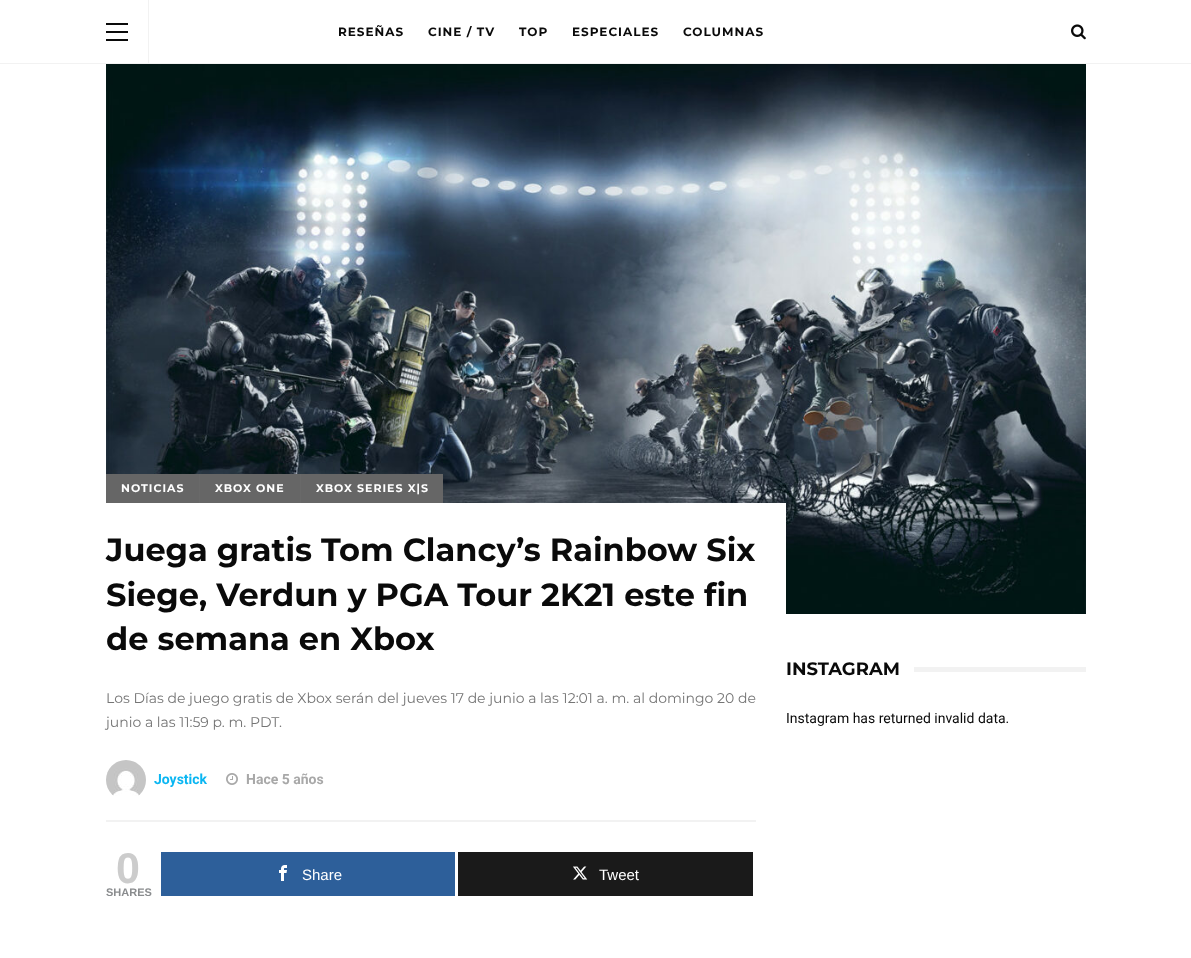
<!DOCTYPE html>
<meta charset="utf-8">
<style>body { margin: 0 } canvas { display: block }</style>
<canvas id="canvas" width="1191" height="958"></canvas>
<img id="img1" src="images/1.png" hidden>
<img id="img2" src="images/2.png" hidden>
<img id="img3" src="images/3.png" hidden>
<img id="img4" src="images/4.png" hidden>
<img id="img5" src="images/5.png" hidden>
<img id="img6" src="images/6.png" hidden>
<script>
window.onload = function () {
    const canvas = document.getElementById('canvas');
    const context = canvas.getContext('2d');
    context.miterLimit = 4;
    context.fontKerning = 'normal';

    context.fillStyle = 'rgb(255, 255, 255)';
    context.fillRect(0, 0, 1191, 958);
    context.fillStyle = 'rgb(242, 242, 242)';
    context.fillRect(0, 63, 1191, 1);
    context.fillRect(148, 0, 1, 63);
    context.fillStyle = 'rgb(10, 10, 10)';
    context.fillRect(106, 31, 22, 2);
    context.fillRect(106, 23, 22, 2);
    context.fillRect(106, 39, 22, 2);
    context.drawImage(document.getElementById('img1'), 1071, 24, 15, 16);
    context.drawImage(document.getElementById('img2'), 106, 64, 980, 550);
    context.fillStyle = 'rgb(102, 102, 102)';
    context.fillRect(106, 474, 93, 29);
    context.fillStyle = 'rgb(105, 105, 105)';
    context.fillRect(199, 474, 1, 29);
    context.fillStyle = 'rgb(102, 102, 102)';
    context.fillRect(200, 474, 100, 29);
    context.fillStyle = 'rgb(105, 105, 105)';
    context.fillRect(300, 474, 1, 29);
    context.fillStyle = 'rgb(102, 102, 102)';
    context.fillRect(301, 474, 142, 29);
    context.fillStyle = 'rgb(255, 255, 255)';
    context.fillRect(106, 503, 680, 111);
    context.drawImage(document.getElementById('img3'), 106, 760, 40, 36);
    context.drawImage(document.getElementById('img4'), 226, 773, 12, 12);
    context.fillStyle = 'rgb(242, 242, 242)';
    context.fillRect(106, 820, 650, 2);
    context.fillStyle = 'rgb(45, 95, 154)';
    context.fillRect(161, 852, 294, 44);
    context.drawImage(document.getElementById('img5'), 279, 865, 8, 16);
    context.fillStyle = 'rgb(26, 26, 26)';
    context.fillRect(458, 852, 295, 44);
    context.drawImage(document.getElementById('img6'), 573, 866, 15, 14);
    context.fillStyle = 'rgb(242, 242, 242)';
    context.fillRect(914, 667, 172, 5);
    context.letterSpacing = '1px';
    context.font = 'bold 12px Montserrat';
    context.fillStyle = 'rgb(10, 10, 10)';
    context.fillText('RESEÑAS', 338, 36);
    context.fillText('CINE / TV', 428, 36);
    context.fillText('TOP', 519, 36);
    context.fillText('ESPECIALES', 572, 36);
    context.fillText('COLUMNAS', 683, 36);
    context.font = 'bold 11px Montserrat';
    context.fillStyle = 'rgb(255, 255, 255)';
    context.fillText('NOTICIAS', 121, 492);
    context.fillText('XBOX ONE', 215, 492);
    context.fillText('XBOX SERIES X|S', 316, 492);
    context.letterSpacing = '0px';
    context.font = 'bold 32px Montserrat';
    context.fillStyle = 'rgb(10, 10, 10)';
    context.fillText('Juega gratis Tom Clancy’s Rainbow Six', 106, 561);
    context.fillText('Siege, Verdun y PGA Tour 2K21 este fin', 106, 606);
    context.fillText('de semana en Xbox', 106, 650);
    context.font = '14px Montserrat';
    context.fillStyle = 'rgb(117, 117, 117)';
    context.fillText('Los Días de juego gratis de Xbox serán del jueves 17 de junio a las 12:01 a. m. al domingo 20 de', 106, 703);
    context.fillText('junio a las 11:59 p. m. PDT.', 106, 727);
    context.font = 'bold 14px Roboto';
    context.fillStyle = 'rgb(10, 182, 242)';
    context.fillText('Joystick', 154, 784);
    context.fillStyle = 'rgb(168, 168, 168)';
    context.fillText('Hace 5 años', 246, 784);
    context.font = 'bold 43px Liberation Sans';
    context.fillStyle = 'rgb(204, 204, 204)';
    context.fillText('0', 116, 883);
    context.font = 'bold 11px Liberation Sans';
    context.fillStyle = 'rgb(138, 140, 142)';
    context.fillText('SHARES', 106, 896);
    context.font = '15px Liberation Sans';
    context.fillStyle = 'rgb(255, 255, 255)';
    context.fillText('Share', 302, 880);
    context.fillText('Tweet', 599, 880);
    context.font = 'bold 18px Montserrat';
    context.fillStyle = 'rgb(10, 10, 10)';
    context.fillText('INSTAGRAM', 786, 675);
    context.font = '14px Roboto';
    context.fillText('Instagram has returned invalid data.', 786, 723);
};
</script>
